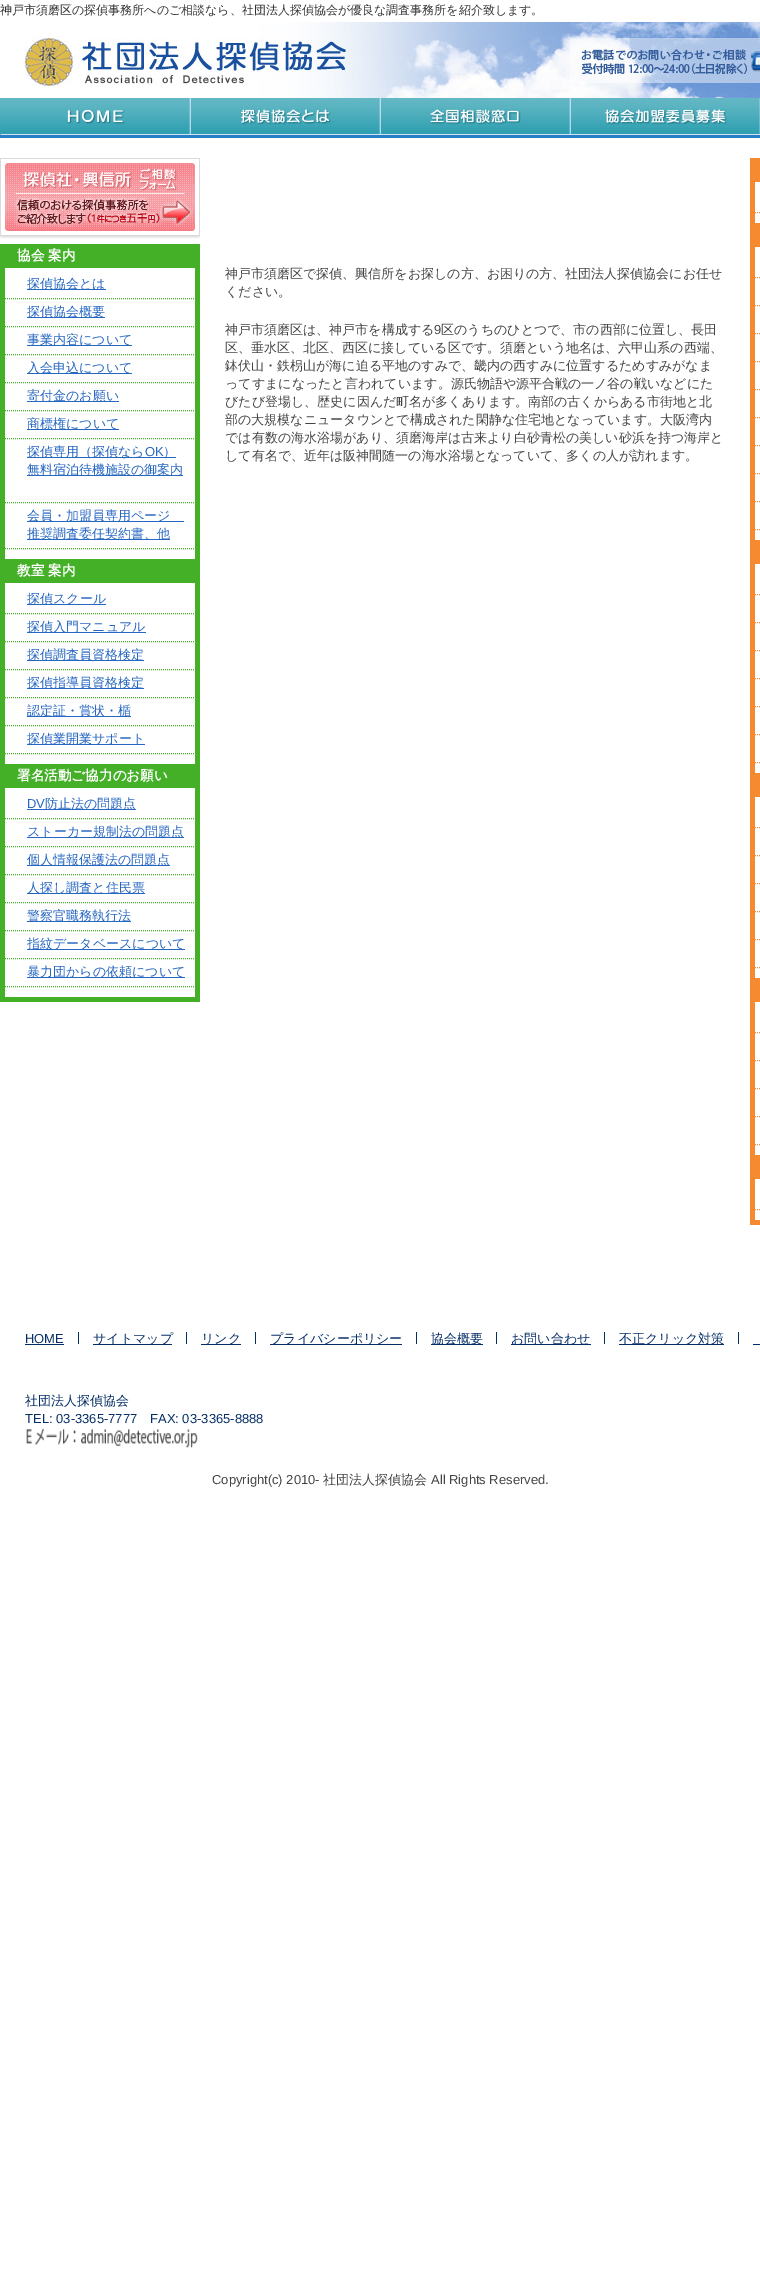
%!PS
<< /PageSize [760 2277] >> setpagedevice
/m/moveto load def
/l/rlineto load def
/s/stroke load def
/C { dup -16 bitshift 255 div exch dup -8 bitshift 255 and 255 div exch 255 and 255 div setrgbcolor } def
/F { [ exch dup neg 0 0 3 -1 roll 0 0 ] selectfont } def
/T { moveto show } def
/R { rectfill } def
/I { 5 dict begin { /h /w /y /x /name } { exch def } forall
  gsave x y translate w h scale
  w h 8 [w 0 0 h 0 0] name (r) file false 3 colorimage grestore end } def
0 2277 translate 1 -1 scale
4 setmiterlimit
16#FFFFFF C
0 0 760 2277 R
/WenQuanYiZenHei-Medium 12 F
16#333333 C
(神戸市須磨区の探偵事務所へのご相談なら、社団法人探偵協会が優良な調査事務所を紹介致します。) 0 14 T
(1.rgb) 24 22 736 76 I
(2.rgb) 0 98 191 40 I
(3.rgb) 191 98 190 40 I
(4.rgb) 381 98 190 40 I
(5.rgb) 571 98 189 40 I
(6.rgb) 0 158 200 81 I
16#44B028 C
195 244 5 758 R
0 997 200 5 R
0 244 5 758 R
5 244 190 24 R
/WenQuanYiZenHei-Bold 13.6 F
16#FFFFFF C
(協会 案内) 17 260 T
16#44B028 C
[1 1] 0 setdash
5 298.5 m 190 0 l s
16#2667C3 C
27 289 79 1 R
/WenQuanYiZenHei-Medium 13 F
(探偵協会とは) 27 288 T
16#44B028 C
5 326.5 m 190 0 l s
16#2667C3 C
27 317 78 1 R
(探偵協会概要) 27 316 T
16#44B028 C
5 354.5 m 190 0 l s
16#2667C3 C
27 345 105 1 R
(事業内容について) 27 344 T
16#44B028 C
5 382.5 m 190 0 l s
16#2667C3 C
27 373 105 1 R
(入会申込について) 27 372 T
16#44B028 C
5 410.5 m 190 0 l s
16#2667C3 C
27 401 92 1 R
(寄付金のお願い) 27 400 T
16#44B028 C
5 438.5 m 190 0 l s
16#2667C3 C
27 429 92 1 R
(商標権について) 27 428 T
16#44B028 C
5 502.5 m 190 0 l s
16#2667C3 C
27 457 149 1 R
(探偵専用（探偵なら) 27 456 T
/LiberationSans-Regular 13 F
(OK) 145 456 T
/WenQuanYiZenHei-Medium 13 F
(）) 163 456 T
27 475 156 1 R
(無料宿泊待機施設の御案内) 27 474 T
16#44B028 C
5 548.5 m 190 0 l s
16#2667C3 C
27 521 157 1 R
(会員・加盟員専用ページ) 27 520 T
27 539 143 1 R
(推奨調査委任契約書、他) 27 538 T
16#44B028 C
5 559 190 24 R
/WenQuanYiZenHei-Bold 13.6 F
16#FFFFFF C
(教室 案内) 17 575 T
16#44B028 C
5 613.5 m 190 0 l s
16#2667C3 C
27 604 79 1 R
/WenQuanYiZenHei-Medium 13 F
(探偵スクール) 27 603 T
16#44B028 C
5 641.5 m 190 0 l s
16#2667C3 C
27 632 119 1 R
(探偵入門マニュアル) 27 631 T
16#44B028 C
5 669.5 m 190 0 l s
16#2667C3 C
27 660 117 1 R
(探偵調査員資格検定) 27 659 T
16#44B028 C
5 697.5 m 190 0 l s
16#2667C3 C
27 688 117 1 R
(探偵指導員資格検定) 27 687 T
16#44B028 C
5 725.5 m 190 0 l s
16#2667C3 C
27 716 104 1 R
(認定証・賞状・楯) 27 715 T
16#44B028 C
5 753.5 m 190 0 l s
16#2667C3 C
27 744 118 1 R
(探偵業開業サポート) 27 743 T
16#44B028 C
5 764 190 24 R
/WenQuanYiZenHei-Bold 13.6 F
16#FFFFFF C
(署名活動ご協力のお願い) 17 780 T
16#44B028 C
5 818.5 m 190 0 l s
/LiberationSans-Regular 13 F
16#2667C3 C
(DV) 27 808 T
27 809 109 1 R
/WenQuanYiZenHei-Medium 13 F
(防止法の問題点) 45 808 T
16#44B028 C
5 846.5 m 190 0 l s
16#2667C3 C
27 837 157 1 R
(ストーカー規制法の問題点) 27 836 T
16#44B028 C
5 874.5 m 190 0 l s
16#2667C3 C
27 865 143 1 R
(個人情報保護法の問題点) 27 864 T
16#44B028 C
5 902.5 m 190 0 l s
16#2667C3 C
27 893 118 1 R
(人探し調査と住民票) 27 892 T
16#44B028 C
5 930.5 m 190 0 l s
16#2667C3 C
27 921 104 1 R
(警察官職務執行法) 27 920 T
16#44B028 C
5 958.5 m 190 0 l s
16#2667C3 C
27 949 158 1 R
(指紋データベースについて) 27 948 T
16#44B028 C
5 986.5 m 190 0 l s
16#2667C3 C
27 977 158 1 R
(暴力団からの依頼について) 27 976 T
16#444444 C
(神戸市須磨区で探偵、興信所をお探しの方、お困りの方、社団法人探偵協会にお任せ) 225 278 T
(ください。) 225 296 T
(神戸市須磨区は、神戸市を構成する) 225 334 T
/LiberationSans-Regular 13 F
(9) 434 334 T
/WenQuanYiZenHei-Medium 13 F
(区のうちのひとつで、市の西部に位置し、長田) 441 334 T
(区、垂水区、北区、西区に接している区です。須磨という地名は、六甲山系の西端、) 225 352 T
(鉢伏山・鉄枴山が海に迫る平地のすみで、畿内の西すみに位置するためすみがなま) 225 370 T
(ってすまになったと言われています。源氏物語や源平合戦の一ノ谷の戦いなどにた) 225 388 T
(びたび登場し、歴史に因んだ町名が多くあります。南部の古くからある市街地と北) 225 406 T
(部の大規模なニュータウンとで構成された閑静な住宅地となっています。大阪湾内) 225 424 T
(では有数の海水浴場があり、須磨海岸は古来より白砂青松の美しい砂浜を持つ海岸と) 225 442 T
(して有名で、近年は阪神間随一の海水浴場となっていて、多くの人が訪れます。) 225 460 T
16#F58A31 C
750 1220 10 5 R
750 158 5 1067 R
755 158 5 24 R
755 212.5 m 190 0 l s
755 223 5 24 R
755 277.5 m 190 0 l 755 305.5 m 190 0 l 755 333.5 m 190 0 l s
755 361.5 m 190 0 l 755 389.5 m 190 0 l 755 417.5 m 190 0 l s
755 445.5 m 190 0 l 755 473.5 m 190 0 l 755 501.5 m 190 0 l s
755 529.5 m 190 0 l s
755 540 5 24 R
755 594.5 m 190 0 l 755 622.5 m 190 0 l 755 650.5 m 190 0 l s
755 678.5 m 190 0 l 755 706.5 m 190 0 l 755 734.5 m 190 0 l s
755 762.5 m 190 0 l s
755 773 5 24 R
755 827.5 m 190 0 l 755 855.5 m 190 0 l 755 883.5 m 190 0 l s
755 911.5 m 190 0 l 755 939.5 m 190 0 l 755 967.5 m 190 0 l s
755 978 5 24 R
755 1032.5 m 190 0 l 755 1060.5 m 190 0 l 755 1088.5 m 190 0 l s
755 1116.5 m 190 0 l 755 1144.5 m 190 0 l s
755 1155 5 24 R
755 1209.5 m 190 0 l s
/LiberationSans-Regular 13 F
16#052D66 C
(HOME) 25 1343 T
25 1344 39 1 R
93 1344 79 1 R
/WenQuanYiZenHei-Medium 13 F
(サイトマップ) 93 1343 T
78 1332 1 12 R
201 1344 40 1 R
(リンク) 201 1343 T
186 1332 1 12 R
270 1344 132 1 R
(プライバシーポリシー) 270 1343 T
255 1332 1 12 R
431 1344 52 1 R
(協会概要) 431 1343 T
416 1332 1 12 R
511 1344 80 1 R
(お問い合わせ) 511 1343 T
496 1332 1 12 R
619 1344 105 1 R
(不正クリック対策) 619 1343 T
604 1332 1 12 R
738 1332 1 12 R
753 1344 7 1 R
(社団法人探偵協会) 25 1405 T
/LiberationSans-Regular 13 F
(TEL: 03-3365-7777) 25 1423 T
(FAX: 03-3365-8888) 150 1423 T
(7.rgb) 26 1428 172 20 I
16#444444 C
(Copyright\(c\) 2010-) 212 1484 T
/WenQuanYiZenHei-Medium 13 F
(社団法人探偵協会) 323 1484 T
/LiberationSans-Regular 13 F
(All Rights Reserved.) 431 1484 T
showpage
